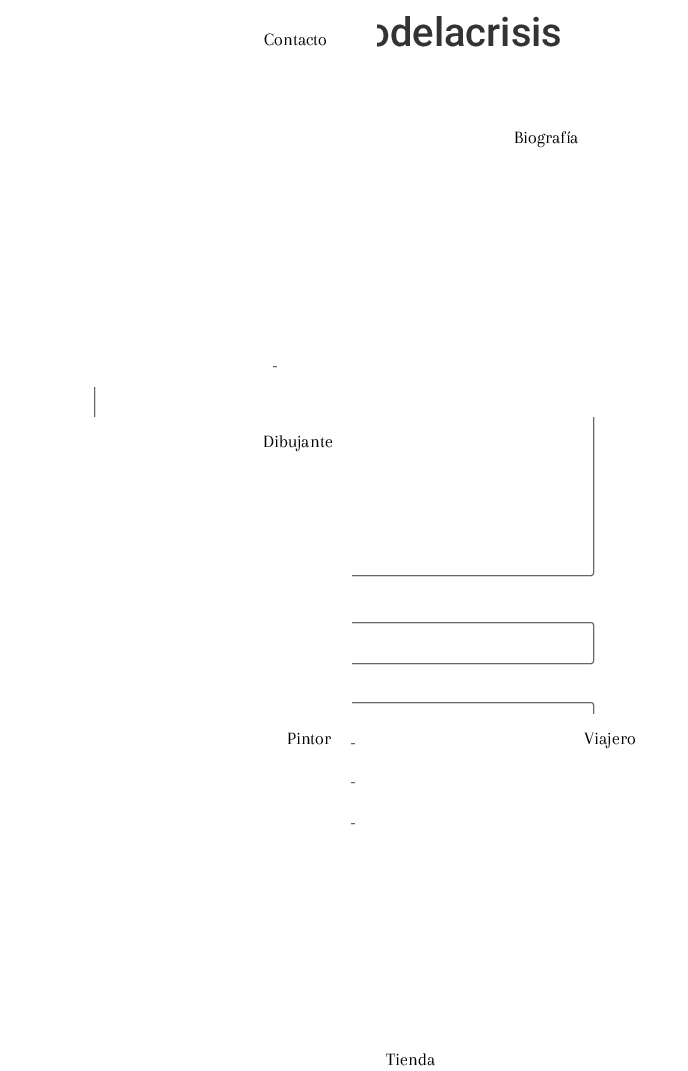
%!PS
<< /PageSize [688 1071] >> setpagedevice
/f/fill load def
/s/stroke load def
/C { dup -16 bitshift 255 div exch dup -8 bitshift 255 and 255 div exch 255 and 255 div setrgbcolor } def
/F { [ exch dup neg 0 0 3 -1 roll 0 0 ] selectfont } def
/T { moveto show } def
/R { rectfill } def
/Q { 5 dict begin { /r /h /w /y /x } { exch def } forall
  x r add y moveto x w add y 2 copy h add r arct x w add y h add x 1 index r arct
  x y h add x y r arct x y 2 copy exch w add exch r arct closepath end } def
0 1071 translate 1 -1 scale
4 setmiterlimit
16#FFFFFF C
0 0 688 1071 R
/Roboto-Medium 40 F
16#333333 C
(odelacrisis) 367 46 T
16#666666 C
94.5 366.5 499 209 2.5 Q s
94.5 622.5 499 41 2.5 Q s
94.5 702.5 499 41 2.5 Q s
94.5 782.5 499 41 rectstroke
16#FFFFFF C
10 113 263 274 2 Q f
277 113 321 304 2 Q f
0 0 377 227 6 Q f
/Arapey-Regular 18 F
16#000000 C
(Contacto) 264 45 T
(Biografía) 514 143 T
16#FFFFFF C
10 417 342 297 2 Q f
16#000000 C
(Dibujante) 263 447 T
16#FFFFFF C
10 714 341 301 2 Q f
16#000000 C
(Pintor) 287 744 T
16#FFFFFF C
355 714 300 321 2 Q f
16#000000 C
(Viajero) 584 744 T
(Tienda) 386 1065 T
showpage
